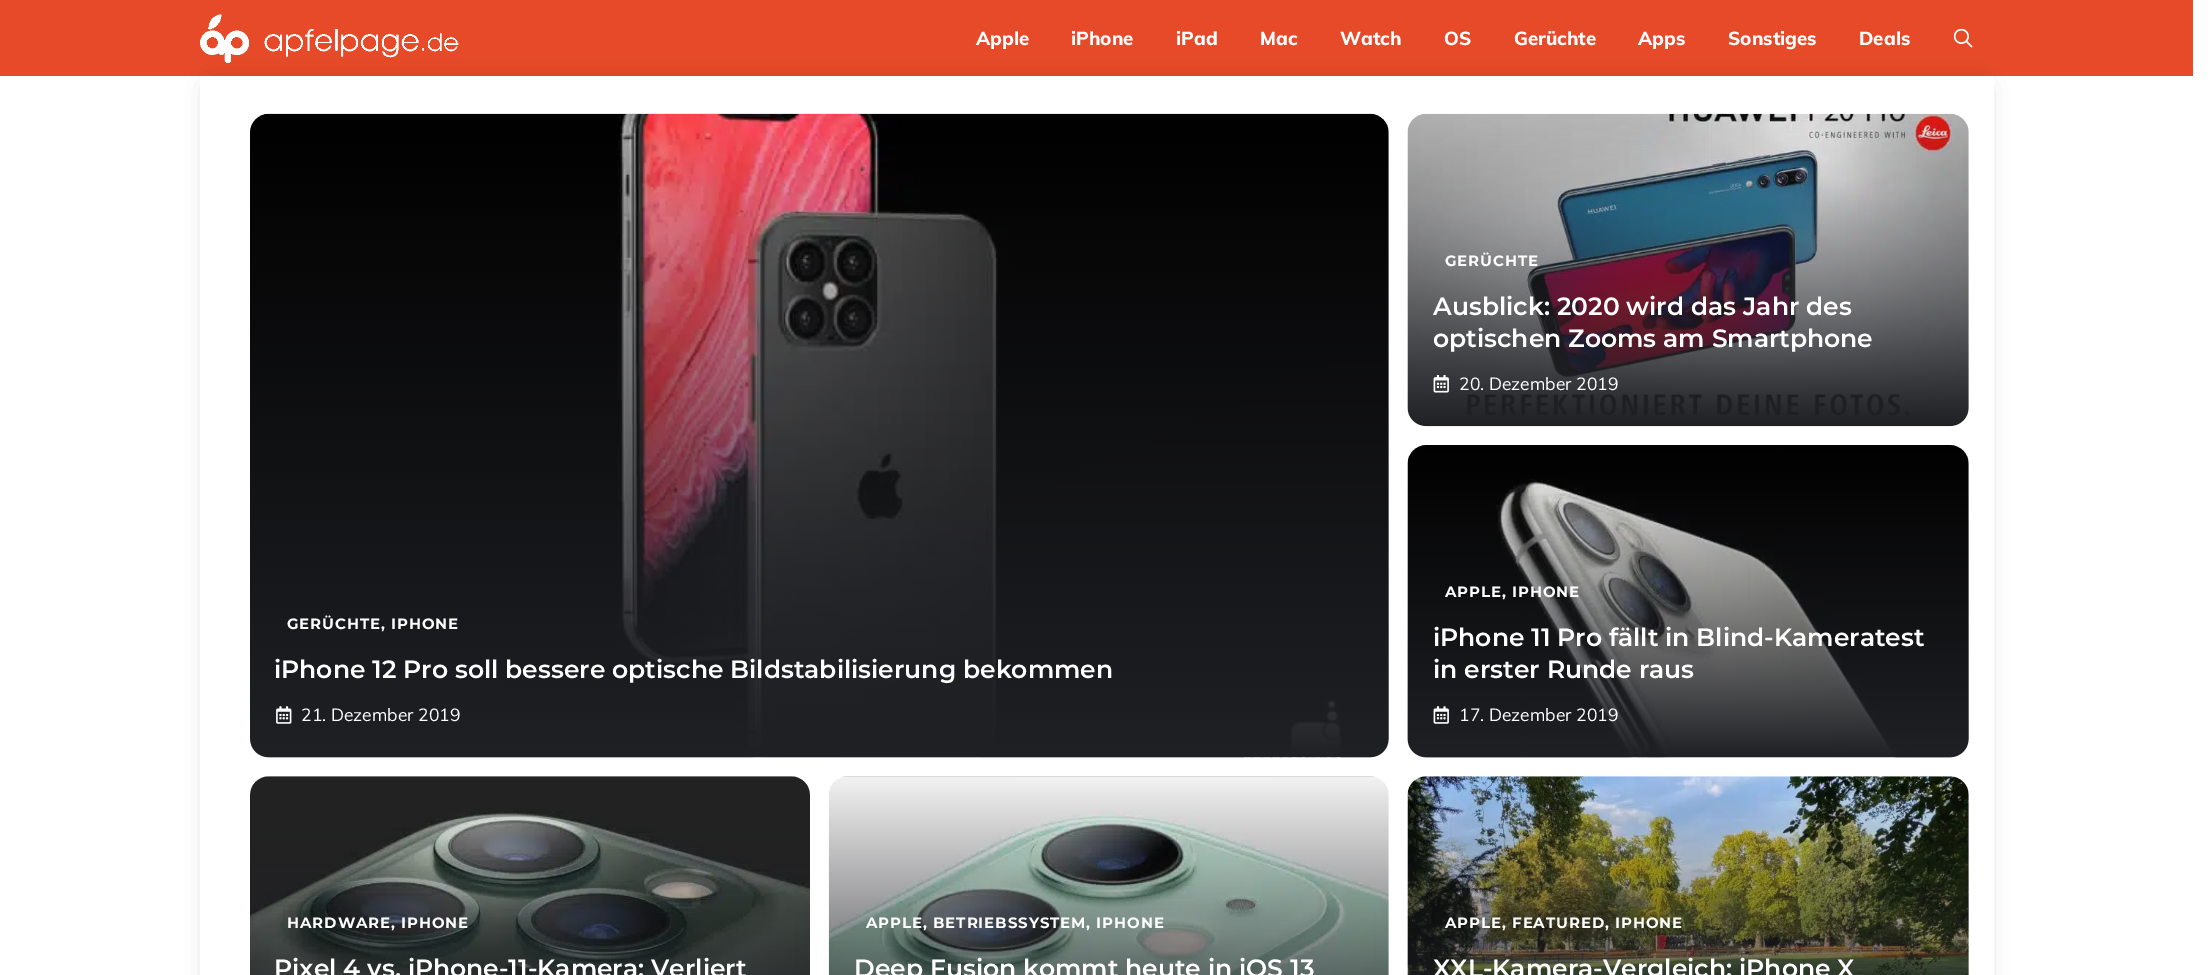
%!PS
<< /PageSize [2211 975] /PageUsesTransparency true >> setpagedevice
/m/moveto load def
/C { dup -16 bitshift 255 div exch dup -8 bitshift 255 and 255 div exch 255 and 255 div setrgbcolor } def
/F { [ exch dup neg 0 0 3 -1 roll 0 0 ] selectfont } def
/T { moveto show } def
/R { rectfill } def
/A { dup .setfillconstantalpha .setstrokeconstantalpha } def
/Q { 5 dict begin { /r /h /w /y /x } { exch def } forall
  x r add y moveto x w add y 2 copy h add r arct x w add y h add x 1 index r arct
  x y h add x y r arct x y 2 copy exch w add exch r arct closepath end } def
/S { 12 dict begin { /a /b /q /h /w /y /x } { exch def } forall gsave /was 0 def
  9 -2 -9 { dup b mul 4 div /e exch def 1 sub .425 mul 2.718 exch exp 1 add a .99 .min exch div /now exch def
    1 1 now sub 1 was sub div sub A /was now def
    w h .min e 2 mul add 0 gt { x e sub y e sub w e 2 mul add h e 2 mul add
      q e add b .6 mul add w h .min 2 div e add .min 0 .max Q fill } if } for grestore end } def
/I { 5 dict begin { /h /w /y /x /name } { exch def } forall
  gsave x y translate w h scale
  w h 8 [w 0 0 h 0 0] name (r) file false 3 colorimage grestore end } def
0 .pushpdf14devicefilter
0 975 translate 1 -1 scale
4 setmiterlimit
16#FFFFFF C
0 0 2211 975 R
16#E64A28 C
0 0 2193 76 R
16#000000 C
213 89 1768 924 0 12.5 .3 S
(1.rgb) 200 14 259 49 I
/Muli-ExtraBold 18.75 F
16#FFFFFF C
(Apple) 976 45 T
(iPhone) 1071 45 T
(iPad) 1176 45 T
(Mac) 1260 45 T
(Watch) 1340 45 T
(OS) 1444 45 T
(Gerüchte) 1514 45 T
(Apps) 1638 45 T
(Sonstiges) 1728 45 T
(Deals) 1859 45 T
(2.rgb) 1954 29 19 19 I
200 76 1794 899 R
(3.rgb) 1407 113 562 314 I
/Montserrat-Bold 15 F
1445 266 m .9 0 (GERÜCHTE) ashow
/Montserrat-SemiBold 25 F
(Ausblick: 2020 wird das Jahr des) 1433 315 T
(optischen Zooms am Smartphone) 1433 347 T
(4.rgb) 1433 375 16 18 I
/Muli-Regular 17.5 F
(20. Dezember 2019) 1459 390 T
(5.rgb) 250 113 1139 645 I
/Montserrat-Bold 15 F
287 629 m .9 0 (GERÜCHTE, IPHONE) ashow
/Montserrat-SemiBold 25 F
(iPhone 12 Pro soll bessere optische Bildstabilisierung bekommen) 274 678 T
(6.rgb) 276 706 16 18 I
/Muli-Regular 17.5 F
(21. Dezember 2019) 301 721 T
(7.rgb) 1407 445 562 313 I
/Montserrat-Bold 15 F
1445 597 m .9 0 (APPLE, IPHONE) ashow
/Montserrat-SemiBold 25 F
(iPhone 11 Pro fällt in Blind-Kameratest) 1433 646 T
(in erster Runde raus) 1433 678 T
(8.rgb) 1433 706 16 18 I
/Muli-Regular 17.5 F
(17. Dezember 2019) 1459 721 T
(9.rgb) 250 776 560 199 I
/Montserrat-Bold 15 F
287 928 m .9 0 (HARDWARE, IPHONE) ashow
/Montserrat-SemiBold 25 F
(Pixel 4 vs. iPhone-11-Kamera: Verliert) 274 977 T
(10.rgb) 828 776 561 199 I
/Montserrat-Bold 15 F
866 928 m .9 0 (APPLE, BETRIEBSSYSTEM, IPHONE) ashow
/Montserrat-SemiBold 25 F
(Deep Fusion kommt heute in iOS 13) 854 977 T
(11.rgb) 1407 776 562 199 I
/Montserrat-Bold 15 F
1445 928 m .9 0 (APPLE, FEATURED, IPHONE) ashow
/Montserrat-SemiBold 25 F
(XXL-Kamera-Vergleich: iPhone X) 1433 977 T
.poppdf14devicefilter showpage
